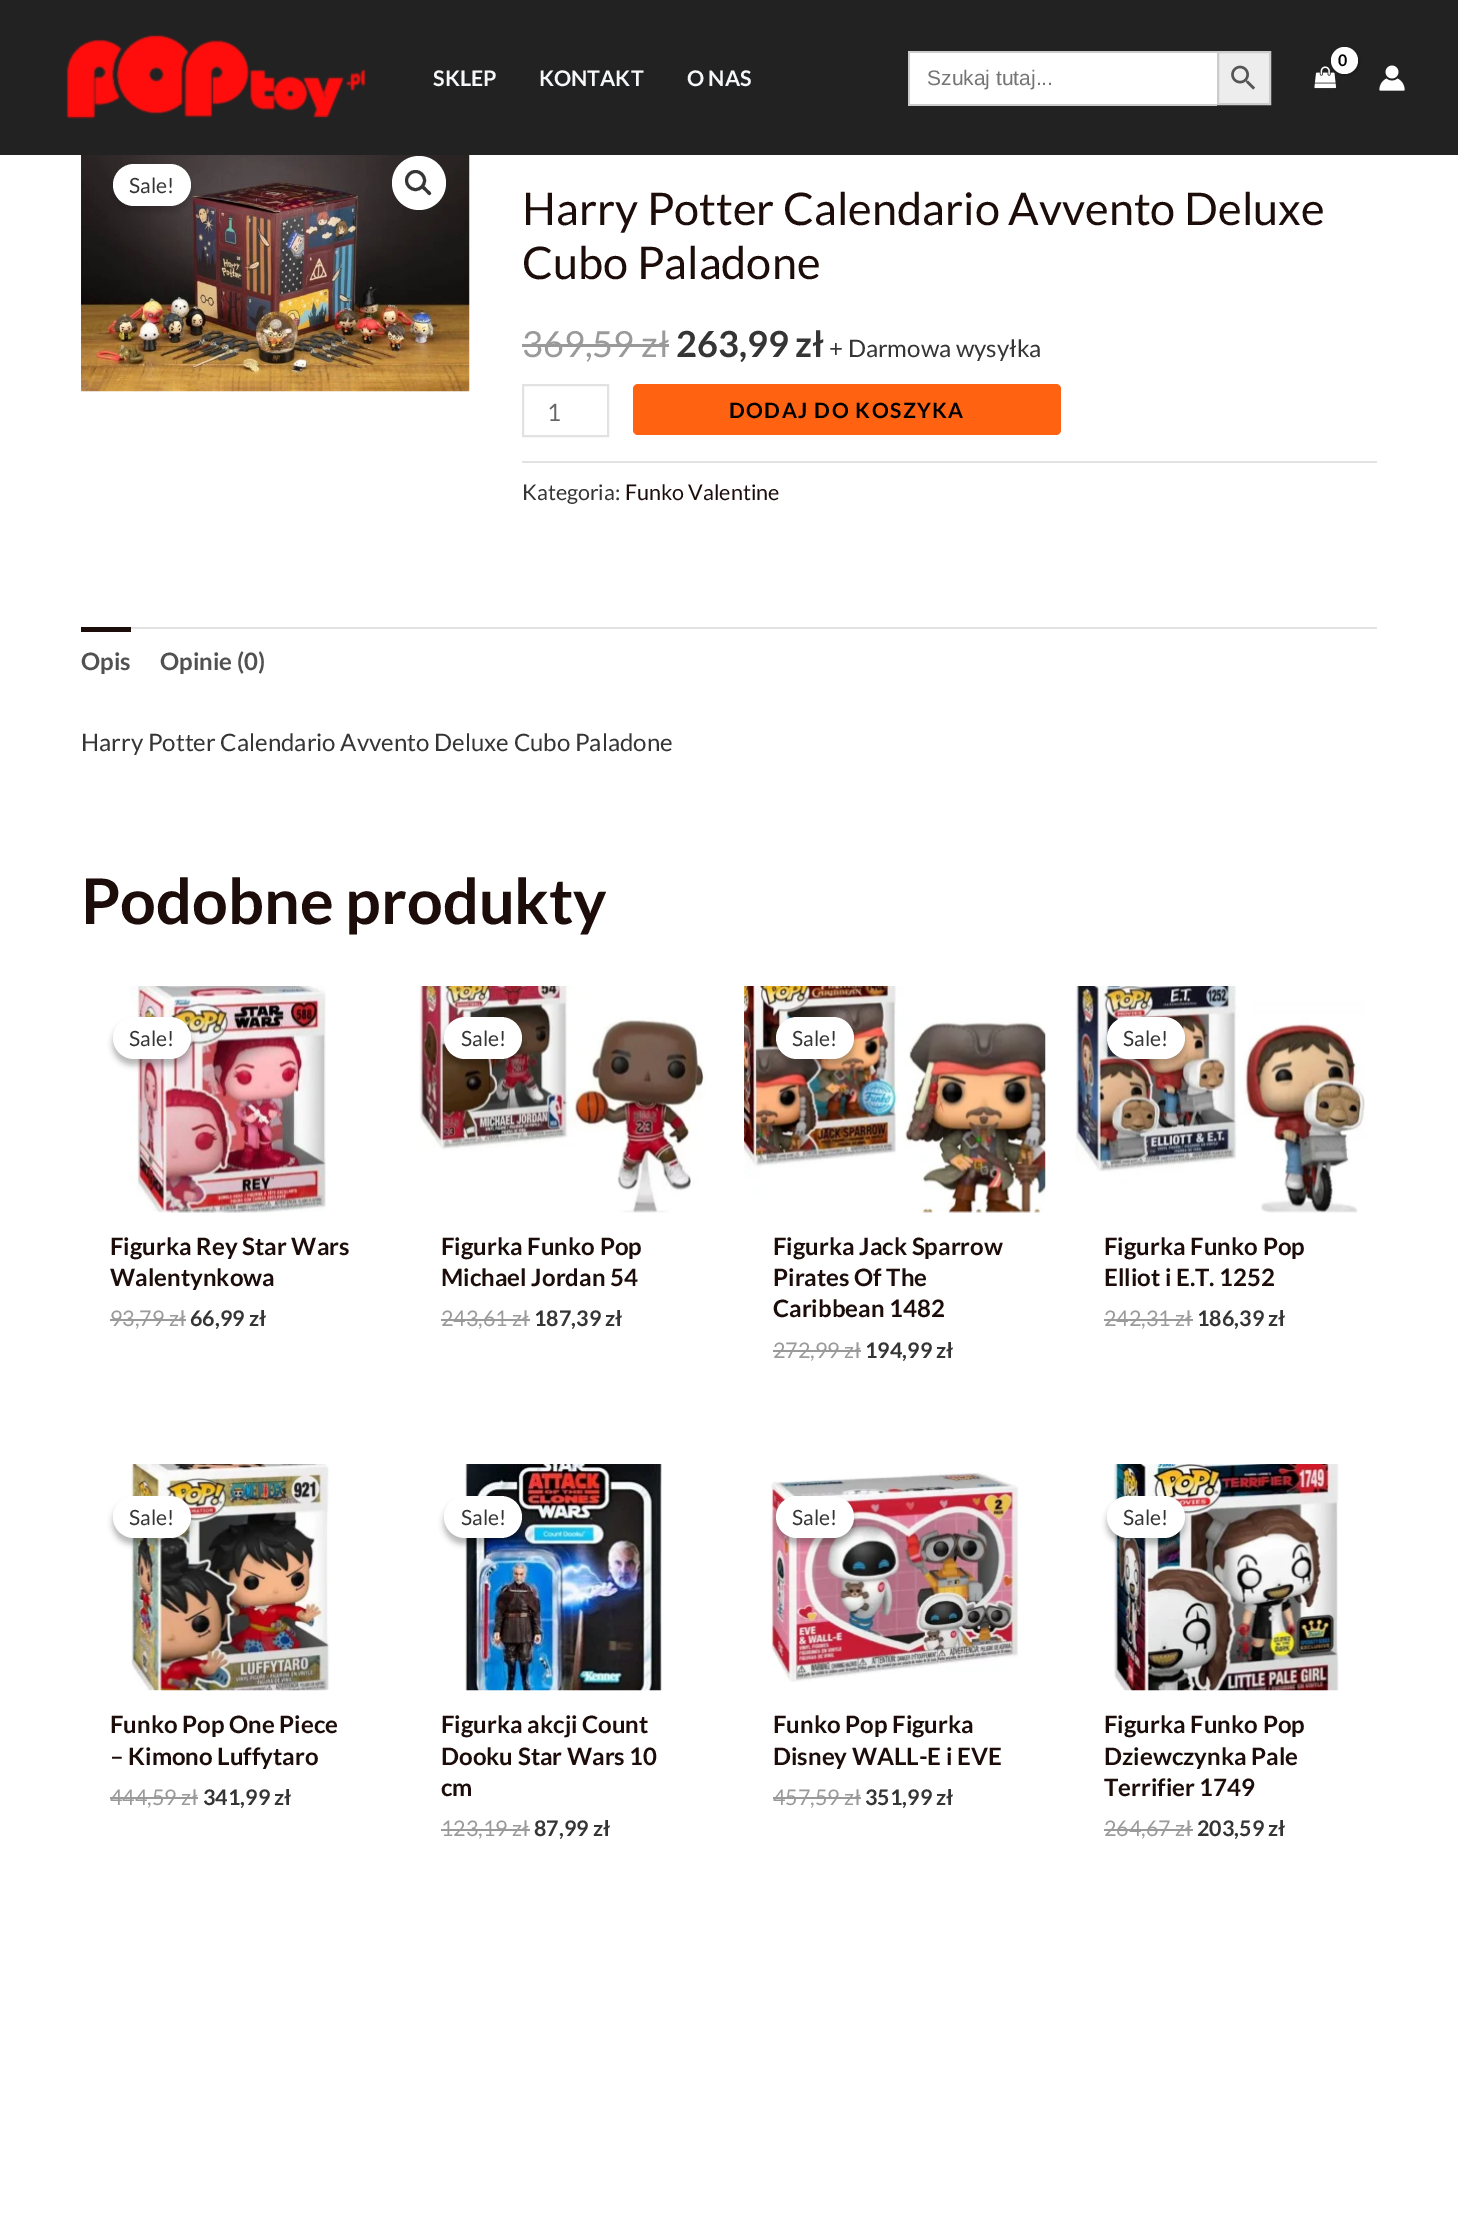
%!PS
<< /PageSize [1458 2216] /PageUsesTransparency true >> setpagedevice
/m/moveto load def
/l/rlineto load def
/c/rcurveto load def
/z/closepath load def
/f/fill load def
/s/stroke load def
/q/gsave load def
/Q_/grestore load def
/w/setlinewidth load def
/C { dup -16 bitshift 255 div exch dup -8 bitshift 255 and 255 div exch 255 and 255 div setrgbcolor } def
/F { [ exch dup neg 0 0 3 -1 roll 0 0 ] selectfont } def
/T { moveto show } def
/R { rectfill } def
/A { dup .setfillconstantalpha .setstrokeconstantalpha } def
/O { newpath 0 360 arc closepath } def
/Q { 5 dict begin { /r /h /w /y /x } { exch def } forall
  x r add y moveto x w add y 2 copy h add r arct x w add y h add x 1 index r arct
  x y h add x y r arct x y 2 copy exch w add exch r arct closepath end } def
/S { 12 dict begin { /a /b /q /h /w /y /x } { exch def } forall gsave /was 0 def
  9 -2 -9 { dup b mul 4 div /e exch def 1 sub .425 mul 2.718 exch exp 1 add a .99 .min exch div /now exch def
    1 1 now sub 1 was sub div sub A /was now def
    w h .min e 2 mul add 0 gt { x e sub y e sub w e 2 mul add h e 2 mul add
      q e add b .6 mul add w h .min 2 div e add .min 0 .max Q fill } if } for grestore end } def
/I { 5 dict begin { /h /w /y /x /name } { exch def } forall
  gsave x y translate w h scale
  w h 8 [w 0 0 h 0 0] name (r) file false 3 colorimage grestore end } def
0 .pushpdf14devicefilter
0 2216 translate 1 -1 scale
4 setmiterlimit
16#FFFFFF C
0 0 1458 2216 R
16#222222 C
0 0 1458 155 R
(1.rgb) 66 34 301 85 I
/Lato-Bold 21.5 F
16#F5F7F9 C
(SKLEP) 433 86 T
(KONTAKT) 539 86 T
(O NAS) 687 86 T
(2.rgb) 1314 66 23 23 I
16#000000 C
1332 48 27 27 13.5 2 .3 S
16#FFFFFF C
1344.5 60.5 13.5 O f
/Lato-Bold 16 F
16#000000 C
1338 66 m -1 0 (0) ashow
16#FFFFFF C
910 53 307 51 R
16#CCCCCC C
908 51 309 2 R
908 104 309 2 R
908 51 2 54 R
/LiberationSans-Regular 21 F
16#757575 C
(Szukaj tutaj...) 927 85 T
16#EDEDED C
1218 52 m 52 0 l 0 52 l -52 0 l z q f Q_
16#CCCCCC C
2 w
s
(3.rgb) 1231 65 25 25 I
(4.rgb) 1379 65 26 26 I
(5.rgb) 81 155 389 237 I
16#FFFFFF C
419 183 27 O f
16#353535 C
3 w
415.5 180.5 9 O s
422 186.5 m 2 -2 4.5 2 5.5 3 c 1 1 5 3.5 3 5 c -1.5 2 -4 -2 -5 -3 c -1 -1 -5 -3.5 -3.5 -5 c z f
16#000000 C
113 170 78 42 21 3 .15 S
16#FFFFFF C
113 164 78 42 21 Q f
/Lato-Regular 21 F
16#353535 C
(Sale!) 129 193 T
/Lato-Regular 45 F
16#1C0D0A C
(Harry Potter Calendario Avvento Deluxe) 522 225 T
(Cubo Paladone) 522 279 T
/Lato-Regular 36 F
16#9A9A9A C
(369,59 zł) 522 357 T
522 344 147 3 R
/Lato-Bold 36 F
16#353535 C
(263,99 zł) 676 357 T
/Lato-Regular 24 F
(+ Darmowa wysyłka) 829 357 T
16#E2E2E2 C
2 w
523 385 85 51 rectstroke
16#666666 C
(1) 547 421 T
16#FF6210 C
633 384 428 51 5 Q f
/Lato-Bold 21 F
16#000000 C
729 418 m 1.5 0 (DODAJ DO KOSZYKA) ashow
16#E2E2E2 C
522 461 855 2 R
/Lato-Regular 21.5 F
16#353535 C
(Kategoria:) 522 500 T
16#1C0D0A C
(Funko Valentine) 625 500 T
16#E2E2E2 C
131 627 1246 2 R
16#1C0D0A C
81 627 50 5 R
/Lato-Bold 24 F
16#515151 C
(Opis) 81 670 T
(Opinie \(0\)) 160 670 T
/Lato-Regular 24 F
16#353535 C
(Harry Potter Calendario Avvento Deluxe Cubo Paladone) 81 751 T
/Lato-Bold 63 F
16#1C0D0A C
(Podobne produkty) 81 924 T
(6.rgb) 129 986 197 227 I
16#000000 C
113 1023 78 42 21 3 .15 S
113 1023 78 42 21 3 .15 S
16#FFFFFF C
113 1017 78 42 21 Q f
/Lato-Regular 21 F
16#353535 C
(Sale!) 129 1046 T
/Lato-Bold 24 F
16#1C0D0A C
(Figurka Rey Star Wars) 110 1255 T
(Walentynkowa) 110 1286 T
/Lato-Regular 21.5 F
16#9A9A9A C
(93,79) 110 1326 T
110 1319 60 2 R
(zł) 169 1326 T
170 1319 16 2 R
/Lato-Bold 21.5 F
16#353535 C
(66,99 zł) 190 1326 T
(7.rgb) 419 986 287 227 I
16#000000 C
444 1023 78 42 21 3 .15 S
444 1023 78 42 21 3 .15 S
16#FFFFFF C
444 1017 78 42 21 Q f
/Lato-Regular 21 F
16#353535 C
(Sale!) 461 1046 T
/Lato-Bold 24 F
16#1C0D0A C
(Figurka Funko Pop) 441 1255 T
(Michael Jordan 54) 441 1286 T
/Lato-Regular 21.5 F
16#9A9A9A C
(243,61 zł) 441 1326 T
441 1319 89 2 R
/Lato-Bold 21.5 F
16#353535 C
(187,39 zł) 534 1326 T
(8.rgb) 744 986 302 227 I
16#000000 C
776 1023 78 42 21 3 .15 S
776 1023 78 42 21 3 .15 S
16#FFFFFF C
776 1017 78 42 21 Q f
/Lato-Regular 21 F
16#353535 C
(Sale!) 792 1046 T
/Lato-Bold 24 F
16#1C0D0A C
(Figurka Jack Sparrow) 773 1255 T
(Pirates Of The) 773 1286 T
(Caribbean 1482) 773 1317 T
/Lato-Regular 21.5 F
16#9A9A9A C
(272,99) 773 1358 T
773 1350 72 2 R
(zł) 844 1358 T
845 1350 16 2 R
/Lato-Bold 21.5 F
16#353535 C
(194,99 zł) 865 1358 T
(9.rgb) 1075 986 290 227 I
16#000000 C
1107 1023 78 42 21 3 .15 S
1107 1023 78 42 21 3 .15 S
16#FFFFFF C
1107 1017 78 42 21 Q f
/Lato-Regular 21 F
16#353535 C
(Sale!) 1123 1046 T
/Lato-Bold 24 F
16#1C0D0A C
(Figurka Funko Pop) 1104 1255 T
(Elliot i E.T. 1252) 1104 1286 T
/Lato-Regular 21.5 F
16#9A9A9A C
(242,31 zł) 1104 1326 T
1104 1319 89 2 R
/Lato-Bold 21.5 F
16#353535 C
(186,39 zł) 1197 1326 T
(10.rgb) 130 1464 200 227 I
16#000000 C
113 1502 78 42 21 3 .15 S
113 1502 78 42 21 3 .15 S
16#FFFFFF C
113 1496 78 42 21 Q f
/Lato-Regular 21 F
16#353535 C
(Sale!) 129 1525 T
/Lato-Bold 24 F
16#1C0D0A C
(Funko Pop One Piece) 110 1733 T
(– Kimono Luffytaro) 110 1765 T
/Lato-Regular 21.5 F
16#9A9A9A C
(444,59 zł) 110 1805 T
110 1797 88 2 R
/Lato-Bold 21.5 F
16#353535 C
(341,99 zł) 203 1805 T
(11.rgb) 465 1464 197 227 I
16#000000 C
444 1502 78 42 21 3 .15 S
444 1502 78 42 21 3 .15 S
16#FFFFFF C
444 1496 78 42 21 Q f
/Lato-Regular 21 F
16#353535 C
(Sale!) 461 1525 T
/Lato-Bold 24 F
16#1C0D0A C
(Figurka akcji Count) 441 1733 T
(Dooku Star Wars 10) 441 1765 T
(cm) 441 1796 T
/Lato-Regular 21.5 F
16#9A9A9A C
(123,19 zł) 441 1836 T
441 1829 89 2 R
/Lato-Bold 21.5 F
16#353535 C
(87,99 zł) 534 1836 T
(12.rgb) 770 1472 249 210 I
16#000000 C
776 1502 78 42 21 3 .15 S
776 1502 78 42 21 3 .15 S
16#FFFFFF C
776 1496 78 42 21 Q f
/Lato-Regular 21 F
16#353535 C
(Sale!) 792 1525 T
/Lato-Bold 24 F
16#1C0D0A C
(Funko Pop Figurka) 773 1733 T
(Disney WALL-E i EVE) 773 1765 T
/Lato-Regular 21.5 F
16#9A9A9A C
(457,59) 773 1805 T
773 1797 72 2 R
(zł) 844 1805 T
845 1797 16 2 R
/Lato-Bold 21.5 F
16#353535 C
(351,99 zł) 865 1805 T
(13.rgb) 1113 1464 226 227 I
16#000000 C
1107 1502 78 42 21 3 .15 S
1107 1502 78 42 21 3 .15 S
16#FFFFFF C
1107 1496 78 42 21 Q f
/Lato-Regular 21 F
16#353535 C
(Sale!) 1123 1525 T
/Lato-Bold 24 F
16#1C0D0A C
(Figurka Funko Pop) 1104 1733 T
(Dziewczynka Pale) 1104 1765 T
(Terrifier 1749) 1104 1796 T
/Lato-Regular 21.5 F
16#9A9A9A C
(264,67 zł) 1104 1836 T
1104 1829 89 2 R
/Lato-Bold 21.5 F
16#353535 C
(203,59 zł) 1197 1836 T
.poppdf14devicefilter showpage
